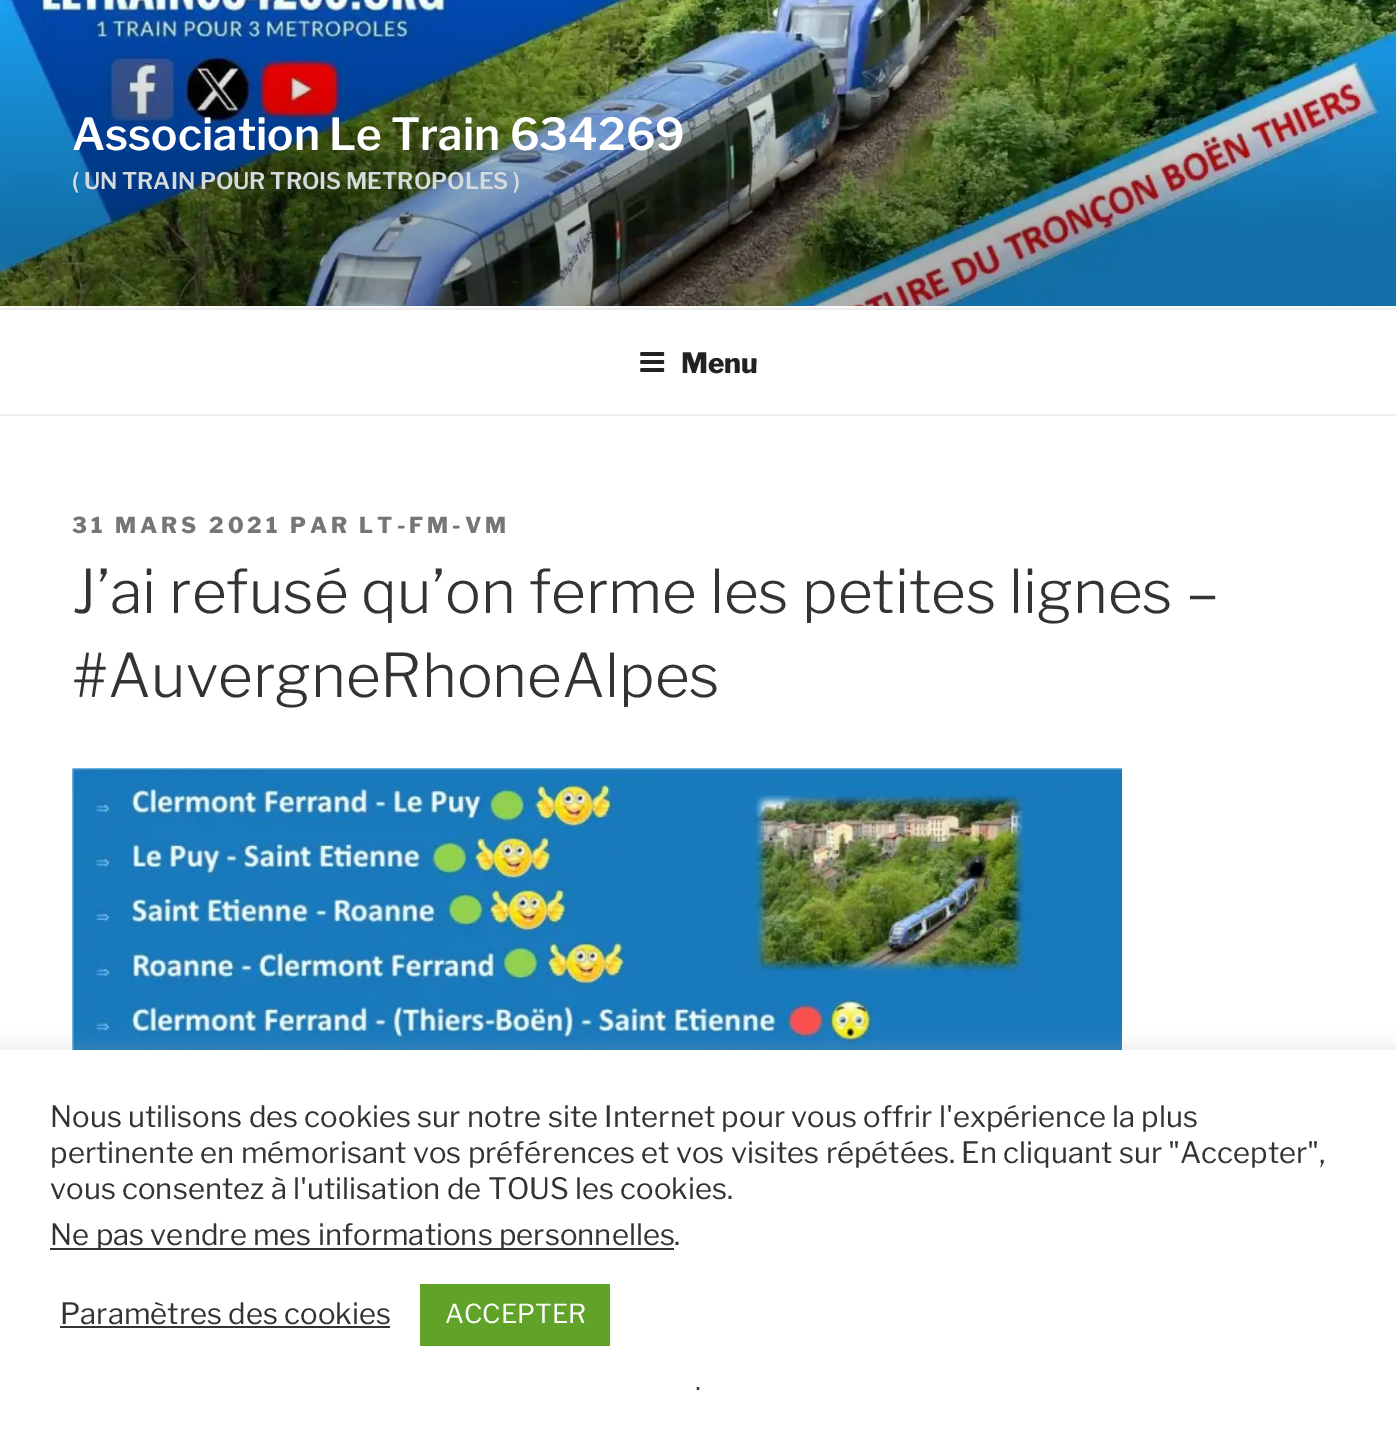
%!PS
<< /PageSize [1396 1456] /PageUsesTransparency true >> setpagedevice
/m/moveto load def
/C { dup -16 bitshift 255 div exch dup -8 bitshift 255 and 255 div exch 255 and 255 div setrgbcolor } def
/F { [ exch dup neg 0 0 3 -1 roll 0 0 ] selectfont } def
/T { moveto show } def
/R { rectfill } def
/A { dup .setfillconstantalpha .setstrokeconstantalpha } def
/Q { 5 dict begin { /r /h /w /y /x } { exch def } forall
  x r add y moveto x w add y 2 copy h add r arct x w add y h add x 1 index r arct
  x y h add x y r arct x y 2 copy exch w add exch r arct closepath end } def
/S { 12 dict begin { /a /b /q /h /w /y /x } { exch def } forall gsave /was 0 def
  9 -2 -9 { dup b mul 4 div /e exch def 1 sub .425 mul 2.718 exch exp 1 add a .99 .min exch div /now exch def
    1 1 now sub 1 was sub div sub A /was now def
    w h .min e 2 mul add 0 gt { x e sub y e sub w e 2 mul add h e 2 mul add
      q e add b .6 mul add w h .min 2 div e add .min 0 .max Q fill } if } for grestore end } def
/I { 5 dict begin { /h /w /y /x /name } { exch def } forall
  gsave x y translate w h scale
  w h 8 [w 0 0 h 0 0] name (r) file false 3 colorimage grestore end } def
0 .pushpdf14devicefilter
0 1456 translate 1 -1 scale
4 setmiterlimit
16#FFFFFF C
0 0 1396 1456 R
16#FAFAFA C
0 306 1396 2 R
(1.rgb) 0 0 1396 306 I
/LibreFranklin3-Thin 44 F
16#FFFFFF C
(Association Le Train 634269) 72 150 T
/LibreFranklin3-Thin 22.75 F
16#D5DBDC C
(\( UN TRAIN POUR TROIS METROPOLES \)) 72 189 T
16#EEEEEE C
0 308 1396 2 R
0 414 1396 2 R
(2.rgb) 640 352 25 20 I
/LibreFranklin-Thin 28 F
16#222222 C
(Menu) 681 373 T
/LibreFranklin-Thin 22 F
16#767676 C
72 533 m 4 0 (31 MARS 2021 PAR LT-FM-VM) ashow
/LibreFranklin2-Thin 60 F
16#333333 C
(J’ai refusé qu’on ferme les petites lignes –) 72 613 T
(#AuvergneRhoneAlpes) 72 697 T
(3.rgb) 72 768 1050 282 I
16#ACABAB C
0 1048 1396 406 0 10 .3 S
16#FFFFFF C
0 1050 1396 406 R
/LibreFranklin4-Thin 29.35 F
16#333333 C
(Nous utilisons des cookies sur notre site Internet pour vous offrir l'expérience la plus) 50 1127 T
(pertinente en mémorisant vos préférences et vos visites répétées. En cliquant sur "Accepter",) 50 1163 T
(vous consentez à l'utilisation de TOUS les cookies.) 50 1199 T
50 1248 624 2 R
(Ne pas vendre mes informations personnelles) 50 1245 T
(.) 674 1245 T
(Paramètres des cookies) 60 1324 T
60 1326 330 2 R
16#61A229 C
420 1284 190 62 R
/LibreFranklin4-Thin 26 F
16#FFFFFF C
(ACCEPTER) 445 1323 T
/LibreFranklin2-Thin 30 F
16#333333 C
(.) 695 1390 T
.poppdf14devicefilter showpage
